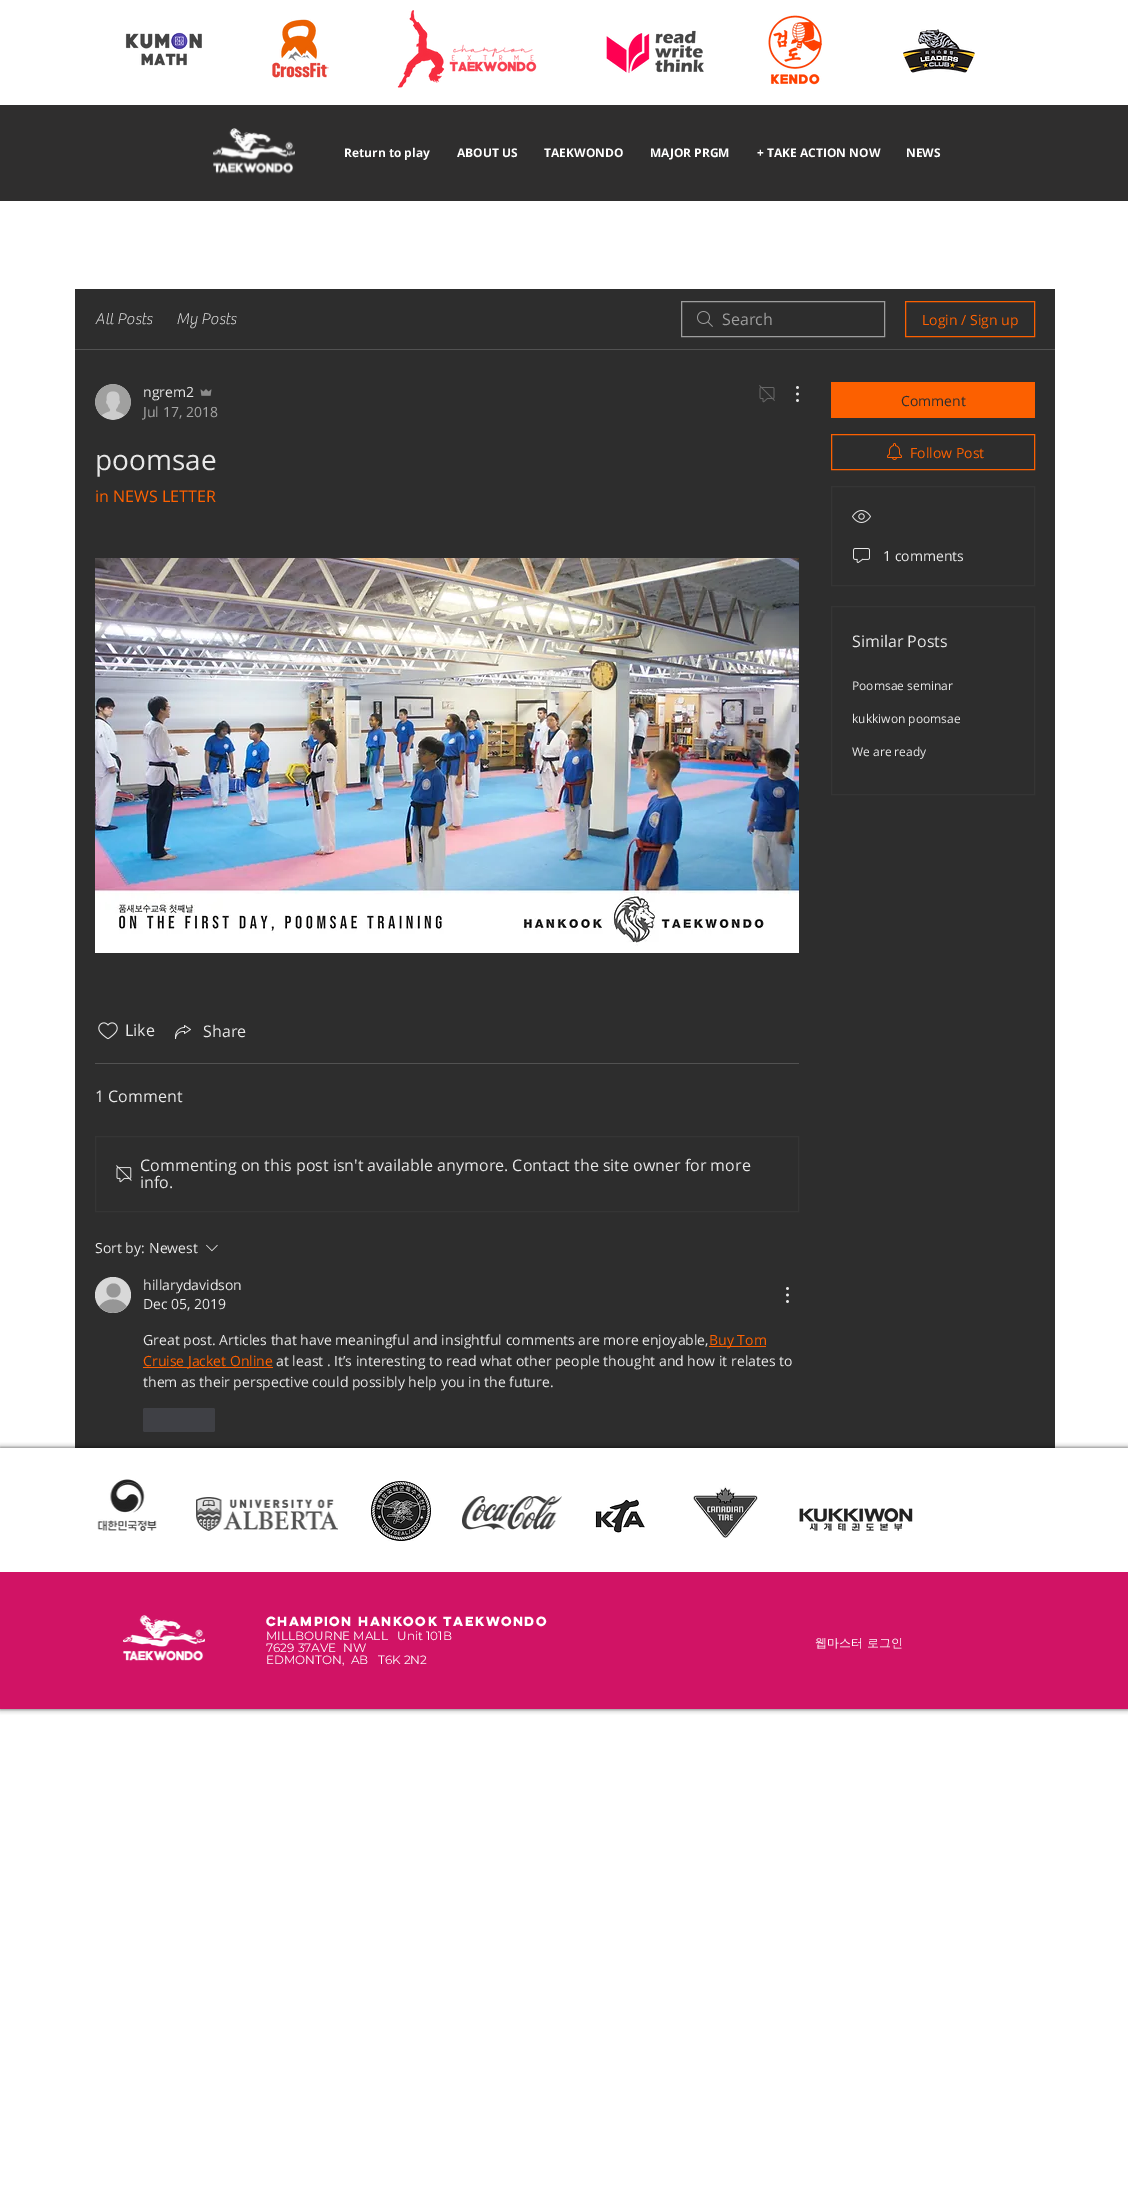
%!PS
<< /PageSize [1128 2209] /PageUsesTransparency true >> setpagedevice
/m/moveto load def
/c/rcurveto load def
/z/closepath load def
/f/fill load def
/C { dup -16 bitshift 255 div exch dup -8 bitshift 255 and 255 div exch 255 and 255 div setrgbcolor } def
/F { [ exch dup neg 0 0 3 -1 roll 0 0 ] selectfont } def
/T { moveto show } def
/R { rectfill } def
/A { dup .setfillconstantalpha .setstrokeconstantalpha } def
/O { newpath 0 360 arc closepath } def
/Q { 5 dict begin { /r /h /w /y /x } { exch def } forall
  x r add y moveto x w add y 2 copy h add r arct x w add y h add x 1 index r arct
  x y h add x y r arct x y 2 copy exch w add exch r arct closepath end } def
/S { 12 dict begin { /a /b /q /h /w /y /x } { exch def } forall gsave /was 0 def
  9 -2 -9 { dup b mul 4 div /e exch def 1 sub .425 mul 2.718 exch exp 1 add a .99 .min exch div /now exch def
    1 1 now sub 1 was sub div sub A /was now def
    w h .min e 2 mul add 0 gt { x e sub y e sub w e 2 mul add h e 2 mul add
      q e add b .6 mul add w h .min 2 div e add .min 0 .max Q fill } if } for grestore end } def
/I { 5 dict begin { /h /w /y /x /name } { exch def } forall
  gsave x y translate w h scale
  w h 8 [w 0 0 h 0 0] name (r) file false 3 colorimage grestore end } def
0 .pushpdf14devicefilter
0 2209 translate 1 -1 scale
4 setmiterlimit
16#FFFFFF C
0 0 1128 2209 R
16#2F2E2E C
0 105 1128 96 R
(1.rgb) 125 32 77 34 I
(2.rgb) 272 19 57 59 I
(3.rgb) 397 10 140 78 I
(4.rgb) 606 30 98 44 I
(5.rgb) 768 15 54 70 I
(6.rgb) 903 29 72 44 I
(7.rgb) 213 128 82 46 I
/OpenSans-Bold 12 F
16#FFFFFF C
(Return to play) 344 157 T
(ABOUT US) 457 157 T
(TAEKWONDO) 544 157 T
(MAJOR PRGM) 650 157 T
(+ TAKE ACTION NOW) 757 157 T
(NEWS) 906 157 T
16#2D2D2D C
75 289 980 1159 R
16#525252 C
75 349 980 1 R
/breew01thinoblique-Thin 16 F
16#E8E8E8 C
(All Posts) 95 324 T
(My Posts) 176 324 T
(8.rgb) 697 311 16 16 I
16#9D9D9D C
681.5 301.5 203 35 rectstroke
/OpenSans-Regular 16 F
(Search) 722 325 T
16#FC6000 C
905.5 301.5 129 35 rectstroke
/OpenSans-Regular 14 F
(Login / Sign up) 922 325 T
(9.rgb) 95 384 36 36 I
16#E8E8E8 C
(ngrem2) 143 397 T
(10.rgb) 200 389 12 7 I
16#A5A5A5 C
(Jul 17, 2018) 143 417 T
(11.rgb) 759 385 16 18 I
(12.rgb) 796 386 3 16 I
/OpenSans-Regular 28 F
16#E8E8E8 C
(poomsae) 95 470 T
/OpenSans-Regular 16 F
16#FC6000 C
(in NEWS LETTER) 95 502 T
(13.rgb) 95 558 704 395 I
(14.rgb) 98 1022 20 18 I
16#E8E8E8 C
(Like) 125 1036 T
(15.rgb) 175 1025 16 14 I
(Share) 203 1037 T
16#525252 C
95 1063 704 1 R
16#E8E8E8 C
(1 Comment) 95 1102 T
16#353535 C
95.5 1136.5 703 75 rectstroke
(16.rgb) 116 1165 16 18 I
16#E8E8E8 C
(Commenting on this post isn't available anymore. Contact the site owner for more) 140 1171 T
(info.) 140 1188 T
/OpenSans-Regular 14 F
(Sort by:) 95 1253 T
(Newest) 149 1253 T
(17.rgb) 206 1244 12 8 I
16#D8D8D8 C
113 1295 18 O f
16#969696 C
113.5 1290.5 7 O f
126.5 1306.5 m -7 8.5 -20 8.5 -27 0 c 6 -9.5 21 -9.5 27 0 c z f
16#E8E8E8 C
(hillarydavidson) 143 1290 T
(Dec 05, 2019) 143 1309 T
(18.rgb) 786 1287 3 16 I
(Great post. Articles that have meaningful and insightful comments are more enjoyable,) 143 1345 T
16#FC6000 C
709 1346 57 1 R
(Buy Tom) 709 1345 T
143 1367 130 1 R
(Cruise Jacket Online) 143 1366 T
16#E8E8E8 C
(at least . It’s interesting to read what other people thought and how it relates to) 276 1366 T
(them as their perspective could possibly help you in the future.) 143 1387 T
16#3F4045 C
143 1408 72 24 2 Q f
16#FC6000 C
831 382 204 36 R
16#2D2D2D C
(Comment) 901 406 T
16#FC6000 C
831.5 434.5 203 35 rectstroke
(19.rgb) 887 443 15 17 I
(Follow Post) 910 458 T
16#353535 C
831.5 486.5 203 99 rectstroke
(20.rgb) 852 510 19 13 I
(21.rgb) 853 548 17 15 I
16#E8E8E8 C
(1 comments) 883 561 T
16#353535 C
831.5 606.5 203 188 rectstroke
/OpenSans-Regular 16 F
16#E8E8E8 C
(Similar Posts) 852 647 T
/OpenSans-Regular 12 F
(Poomsae seminar) 852 690 T
(kukkiwon poomsae) 852 723 T
(We are ready) 852 756 T
16#000000 C
0 1448 1128 261 0 2.5 .7 S
16#D11365 C
0 1572 1128 137 R
16#FFFFFF C
0 1448 1128 124 R
(22.rgb) 97 1479 60 52 I
(23.rgb) 196 1497 142 34 I
(24.rgb) 371 1481 60 60 I
(25.rgb) 462 1496 100 34 I
(26.rgb) 595 1499 50 34 I
(27.rgb) 693 1486 65 52 I
(28.rgb) 799 1508 114 23 I
(29.rgb) 123 1615 82 46 I
/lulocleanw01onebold-Bold 12 F
266 1626 m -1.2 0 (CHAMPION HANKOOK TAEKWONDO) ashow
/Montserrat-Regular 12 F
(MILLBOURNE MALL   Unit 101B) 266 1640 T
(7629 37AVE  NW) 266 1652 T
(EDMONTON,  AB   T6K 2N2) 266 1664 T
/WenQuanYiZenHei-Medium 12 F
(웹마스터 로그인) 815 1647 T
.poppdf14devicefilter showpage
